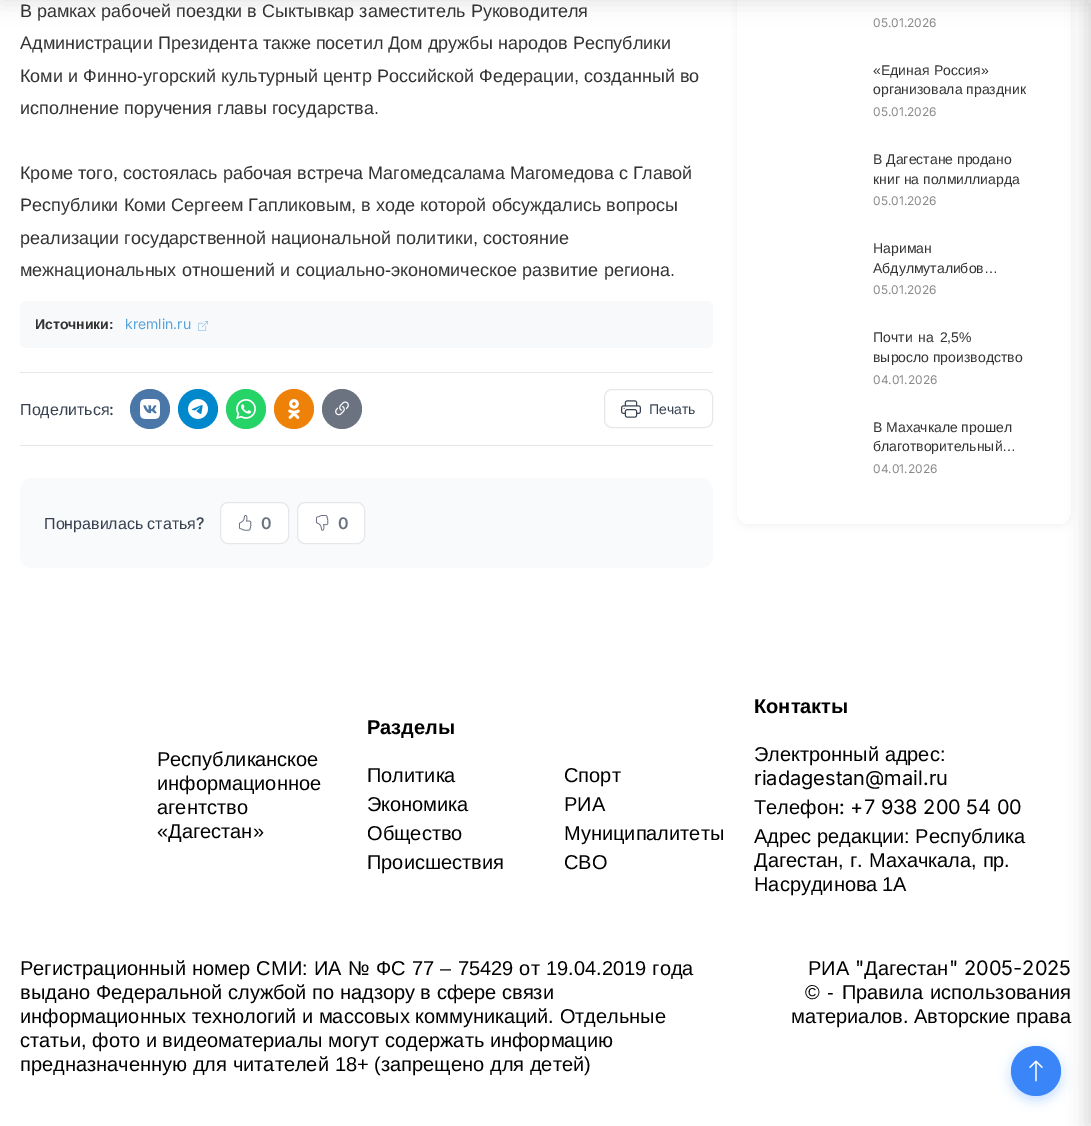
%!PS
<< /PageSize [1091 1126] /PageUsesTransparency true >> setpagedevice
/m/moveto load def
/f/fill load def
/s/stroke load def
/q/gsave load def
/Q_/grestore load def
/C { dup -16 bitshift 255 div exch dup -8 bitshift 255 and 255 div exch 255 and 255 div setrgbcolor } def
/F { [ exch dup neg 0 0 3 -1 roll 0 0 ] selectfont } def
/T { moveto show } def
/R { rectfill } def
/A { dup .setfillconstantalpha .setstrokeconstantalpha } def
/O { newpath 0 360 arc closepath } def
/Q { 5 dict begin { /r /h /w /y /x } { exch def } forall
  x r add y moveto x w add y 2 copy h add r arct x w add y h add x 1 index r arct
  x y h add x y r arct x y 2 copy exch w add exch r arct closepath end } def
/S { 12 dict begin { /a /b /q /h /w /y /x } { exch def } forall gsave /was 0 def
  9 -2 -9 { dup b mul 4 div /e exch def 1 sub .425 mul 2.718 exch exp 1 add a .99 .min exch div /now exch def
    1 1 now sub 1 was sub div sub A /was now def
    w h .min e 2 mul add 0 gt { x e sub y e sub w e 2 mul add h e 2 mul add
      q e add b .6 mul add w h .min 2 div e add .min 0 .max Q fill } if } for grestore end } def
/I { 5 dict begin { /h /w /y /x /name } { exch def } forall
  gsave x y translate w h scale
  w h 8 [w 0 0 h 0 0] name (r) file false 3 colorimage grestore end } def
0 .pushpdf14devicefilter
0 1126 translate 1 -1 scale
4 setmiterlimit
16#FFFFFF C
0 0 1091 1126 R
16#000000 C
737 -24 334 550 12 4 .06 S
16#FFFFFF C
737 -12 334 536 12 Q f
16#000000 C
0 -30 1091 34 0 10 .1 S
/LiberationSans-Regular 18 F
16#333333 C
(В рамках рабочей поездки в Сыктывкар заместитель Руководителя) 20 17 T
(Администрации Президента также посетил Дом дружбы народов Республики) 20 49 T
20 82 m .25 0 32 (Коми и Финно-угорский культурный центр Российской Федерации, созданный во) widthshow
(исполнение поручения главы государства.) 20 114 T
(Кроме того, состоялась рабочая встреча Магомедсалама Магомедова с Главой) 20 179 T
(Республики Коми Сергеем Гапликовым, в ходе которой обсуждались вопросы) 20 211 T
(реализации государственной национальной политики, состояние) 20 244 T
20 276 m .5 0 32 (межнациональных отношений и социально-экономическое развитие региона.) widthshow
16#F8F9FA C
20 301 693 47 6 Q f
/LiberationSans-Bold 14 F
16#333333 C
(Источники:) 35 329 T
/Inter-Regular 14 F
16#57A4DB C
(kremlin.ru) 125 329 T
(1.rgb) 198 321 10 10 I
16#E5E7EB C
20 372 693 1 R
20 445 693 1 R
/LiberationSans-Regular 16 F
16#374151 C
(Поделиться) 20 415 T
/Inter-Medium 16 F
(:) 109 415 T
16#4A76A8 C
150 409 20 O f
(2.rgb) 140 399 20 20 I
16#0088CC C
198 409 20 O f
(3.rgb) 188 399 20 20 I
16#25D366 C
246 409 20 O f
(4.rgb) 236 399 20 20 I
16#EE8208 C
294 409 20 O f
(5.rgb) 288 399 12 20 I
16#6B7280 C
342 409 20 O f
(6.rgb) 335 401 14 15 I
16#E5E7EB C
604.5 389.5 108 38 7.5 Q s
(7.rgb) 621 400 20 18 I
/LiberationSans-Regular 14 F
16#374151 C
(Печать) 649 414 T
16#F9FAFB C
20 478 693 90 12 Q f
/LiberationSans-Regular 16 F
16#374151 C
(Понравилась статья) 44 529 T
/Inter-Medium 16 F
(?) 196 529 T
16#FFFFFF C
220.5 502.5 68 41 7.5 Q q f Q_
16#E5E7EB C
s
(8.rgb) 238 515 14 16 I
/Inter-SemiBold 16 F
16#6B7280 C
(0) 261 529 T
16#FFFFFF C
297.5 502.5 67 41 7.5 Q q f Q_
16#E5E7EB C
s
(9.rgb) 315 515 14 16 I
16#6B7280 C
(0) 338 529 T
/Inter-Regular 12 F
16#888888 C
(05.01.2026) 873 27 T
/LiberationSans-Regular 14 F
16#333333 C
873 75 m 1 0 32 («Единая Россия») widthshow
(организовала праздник) 873 94 T
/Inter-Regular 12 F
16#888888 C
(05.01.2026) 873 116 T
/LiberationSans-Regular 14 F
16#333333 C
(В Дагестане продано) 873 164 T
(книг на полмиллиарда) 873 184 T
/Inter-Regular 12 F
16#888888 C
(05.01.2026) 873 205 T
/LiberationSans-Regular 14 F
16#333333 C
(Нариман) 873 253 T
(Абдулмуталибов…) 873 273 T
/Inter-Regular 12 F
16#888888 C
(05.01.2026) 873 294 T
/LiberationSans-Regular 14 F
16#333333 C
873 342 m 2 0 32 (Почти на 2,5%) widthshow
(выросло производство) 873 362 T
/Inter-Regular 12 F
16#888888 C
(04.01.2026) 873 384 T
/LiberationSans-Regular 14 F
16#333333 C
(В Махачкале прошел) 873 432 T
(благотворительный…) 873 451 T
/Inter-Regular 12 F
16#888888 C
(04.01.2026) 873 473 T
16#3A86F8 C
1011 1050 50 50 25 6 .3 S
1036 1071 25 O f
16#000000 C
1086 0 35 1126 0 10 .15 S
/LiberationSans-Regular 20 F
(Республиканское) 157 766 T
(информационное) 157 790 T
(агентство) 157 814 T
(«Дагестан») 157 838 T
/LiberationSans-Bold 20 F
(Разделы) 367 734 T
/LiberationSans-Regular 20 F
(Политика) 367 782 T
(Экономика) 367 811 T
(Общество) 367 840 T
(Происшествия) 367 869 T
(Спорт) 564 782 T
(РИА) 564 811 T
(Муниципалитеты) 564 840 T
(СВО) 564 869 T
/LiberationSans-Bold 20 F
(Контакты) 754 713 T
/LiberationSans-Regular 20 F
(Электронный адрес:) 754 761 T
/Inter-Regular 20 F
(riadagestan@mail.ru) 754 785 T
/LiberationSans-Regular 20 F
(Телефон) 754 814 T
/Inter-Regular 20 F
(: +7 938 200 54 00) 839 814 T
/LiberationSans-Regular 20 F
(Адрес редакции: Республика) 754 843 T
754 867 m .5 0 32 (Дагестан, г. Махачкала, пр.) widthshow
754 891 m -1 0 32 (Насрудинова 1А) widthshow
20 975 m .75 0 32 (Регистрационный номер СМИ: ИА № ФС 77 – 75429 от 19.04.2019 года) widthshow
(выдано Федеральной службой по надзору в сфере связи) 20 999 T
(информационных технологий и массовых коммуникаций. Отдельные) 20 1023 T
(статьи, фото и видеоматериалы могут содержать информацию) 20 1047 T
20 1071 m .25 0 32 (предназначенную для читателей 18+ \(запрещено для детей\)) widthshow
(РИА) 808 975 T
/Inter-Regular 20 F
(") 855 975 T
/LiberationSans-Regular 20 F
(Дагестан) 864 975 T
/Inter-Regular 20 F
(" 2005-2025) 949 975 T
/LiberationSans-Regular 20 F
805 999 m 2 0 32 (© - Правила использования) widthshow
(материалов. Авторские права) 791 1023 T
(10.rgb) 1029 1060 14 22 I
.poppdf14devicefilter showpage
